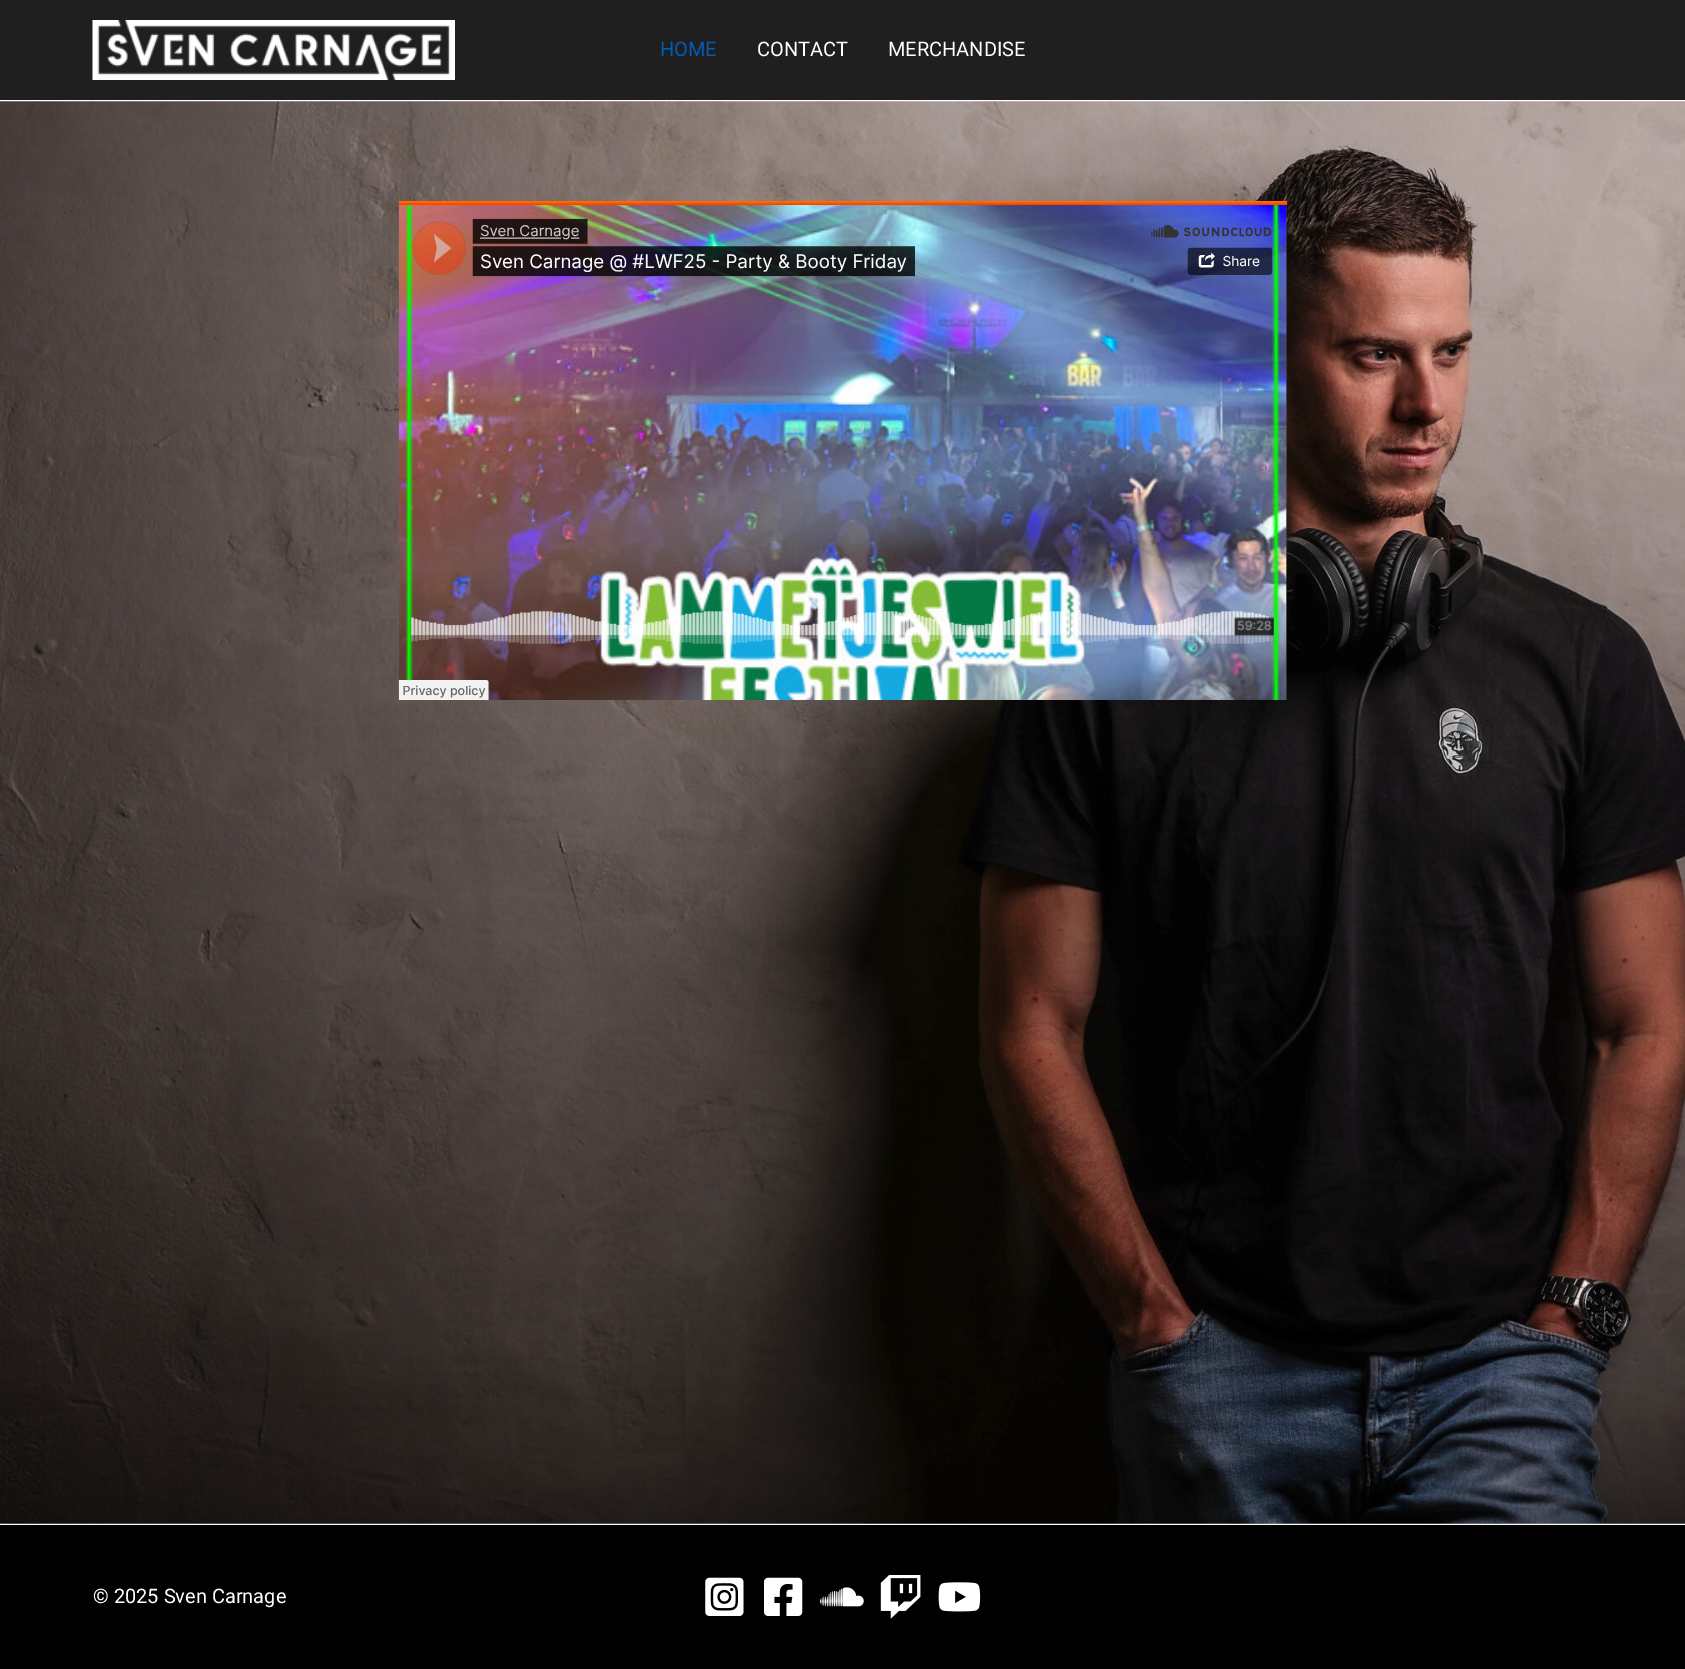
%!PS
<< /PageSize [1685 1669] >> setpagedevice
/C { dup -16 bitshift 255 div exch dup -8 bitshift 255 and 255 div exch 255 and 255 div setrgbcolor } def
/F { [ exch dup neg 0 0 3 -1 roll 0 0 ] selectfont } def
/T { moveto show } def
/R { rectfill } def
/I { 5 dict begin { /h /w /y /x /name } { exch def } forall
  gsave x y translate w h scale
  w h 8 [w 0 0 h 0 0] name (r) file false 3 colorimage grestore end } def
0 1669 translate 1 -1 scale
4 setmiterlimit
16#FFFFFF C
0 0 1685 1669 R
16#1F1F1F C
0 0 1685 100 R
(1.rgb) 92 20 363 60 I
/Roboto-Regular 20 F
16#045CB4 C
(HOME) 660 56 T
16#FFFFFF C
(CONTACT) 757 56 T
(MERCHANDISE) 888 56 T
(2.rgb) 0 101 1685 1423 I
(3.rgb) 398 201 889 499 I
16#000000 C
0 1525 1685 144 R
16#FFFFFF C
(© 2025 Sven Carnage) 93 1603 T
(4.rgb) 705 1577 39 39 I
(5.rgb) 764 1577 39 39 I
(6.rgb) 820 1587 44 20 I
(7.rgb) 880 1575 41 44 I
(8.rgb) 938 1582 43 30 I
showpage
